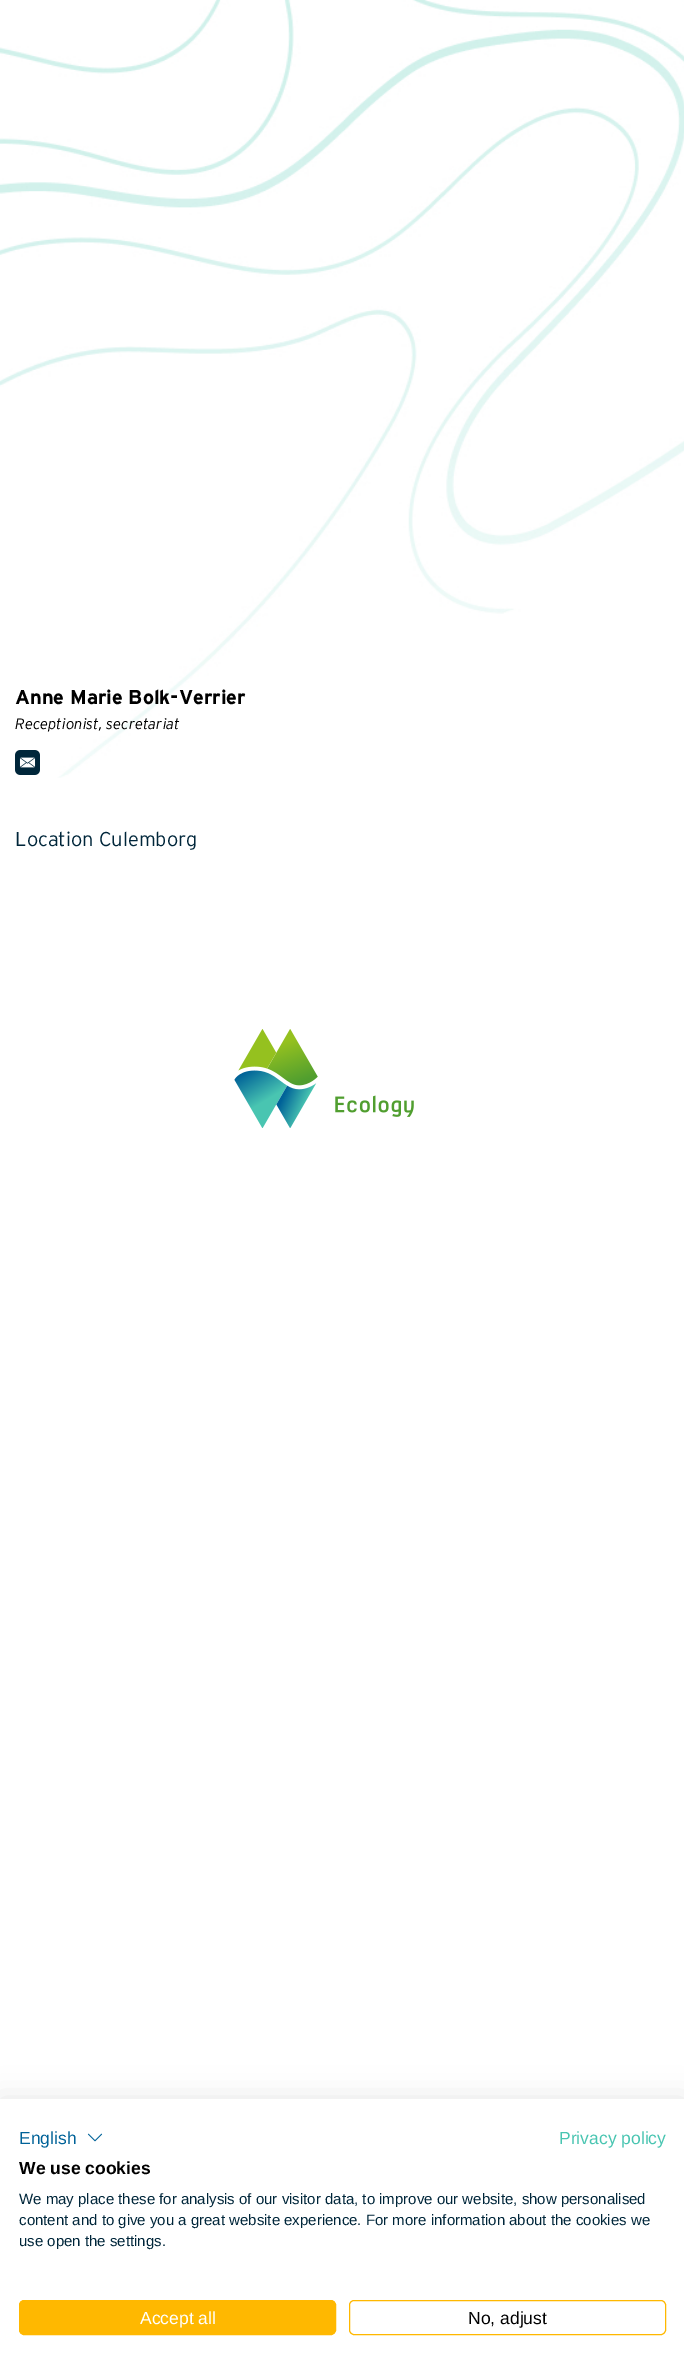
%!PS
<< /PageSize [684 2368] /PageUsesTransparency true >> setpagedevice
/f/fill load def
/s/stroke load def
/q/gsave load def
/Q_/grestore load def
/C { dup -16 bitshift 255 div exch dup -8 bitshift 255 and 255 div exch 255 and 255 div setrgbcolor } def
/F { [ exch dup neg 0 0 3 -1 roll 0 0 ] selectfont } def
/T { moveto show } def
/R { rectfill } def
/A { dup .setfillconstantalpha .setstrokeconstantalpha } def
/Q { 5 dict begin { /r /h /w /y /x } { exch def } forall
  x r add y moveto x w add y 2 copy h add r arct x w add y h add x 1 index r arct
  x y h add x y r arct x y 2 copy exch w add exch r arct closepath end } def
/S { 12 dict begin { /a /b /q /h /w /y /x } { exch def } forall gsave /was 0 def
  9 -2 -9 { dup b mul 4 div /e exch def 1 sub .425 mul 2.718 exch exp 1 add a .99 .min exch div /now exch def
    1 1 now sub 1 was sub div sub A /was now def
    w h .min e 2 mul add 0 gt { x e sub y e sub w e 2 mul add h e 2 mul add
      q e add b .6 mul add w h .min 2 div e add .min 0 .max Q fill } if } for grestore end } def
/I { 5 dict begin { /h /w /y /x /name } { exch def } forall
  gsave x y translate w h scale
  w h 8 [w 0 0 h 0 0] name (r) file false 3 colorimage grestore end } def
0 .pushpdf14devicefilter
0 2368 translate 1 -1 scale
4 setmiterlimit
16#FFFFFF C
0 0 684 2368 R
(1.rgb) 0 0 684 778 I
/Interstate-Bold 20 F
16#000000 C
(Anne Marie Bolk-Verrier) 15 704 T
/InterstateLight-LightItalic 15 F
(Receptionist, secretariat) 15 729 T
(2.rgb) 15 750 25 25 I
/InterstateLight-Light 20 F
16#00263A C
(Location Culemborg) 15 846 T
(3.rgb) 234 1029 180 99 I
16#000000 C
0 2099 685 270 0 15 .1 S
16#FFFFFF C
0 2099 684 269 R
/LiberationSans-Regular 17.5 F
16#006298 C
(English) 19 2144 T
(4.rgb) 87 2133 16 9 I
16#49C5B1 C
(Privacy policy) 559 2144 T
/LiberationSans-Bold 17.5 F
16#000000 C
(We use cookies) 19 2174 T
/LiberationSans-Regular 15 F
16#00263A C
(We may place these for analysis of our visitor data, to improve our website, show personalised) 19 2204 T
(content and to give you a great website experience. For more information about the cookies we) 19 2225 T
(use open the settings.) 19 2246 T
16#FFB800 C
19.5 2300.5 316 34 4.5 Q q f Q_
s
/LiberationSans-Regular 17.5 F
16#FFFFFF C
(Accept all) 140 2324 T
16#FFB800 C
349.5 2300.5 316 34 4.5 Q s
16#000000 C
(No, adjust) 468 2324 T
.poppdf14devicefilter showpage
